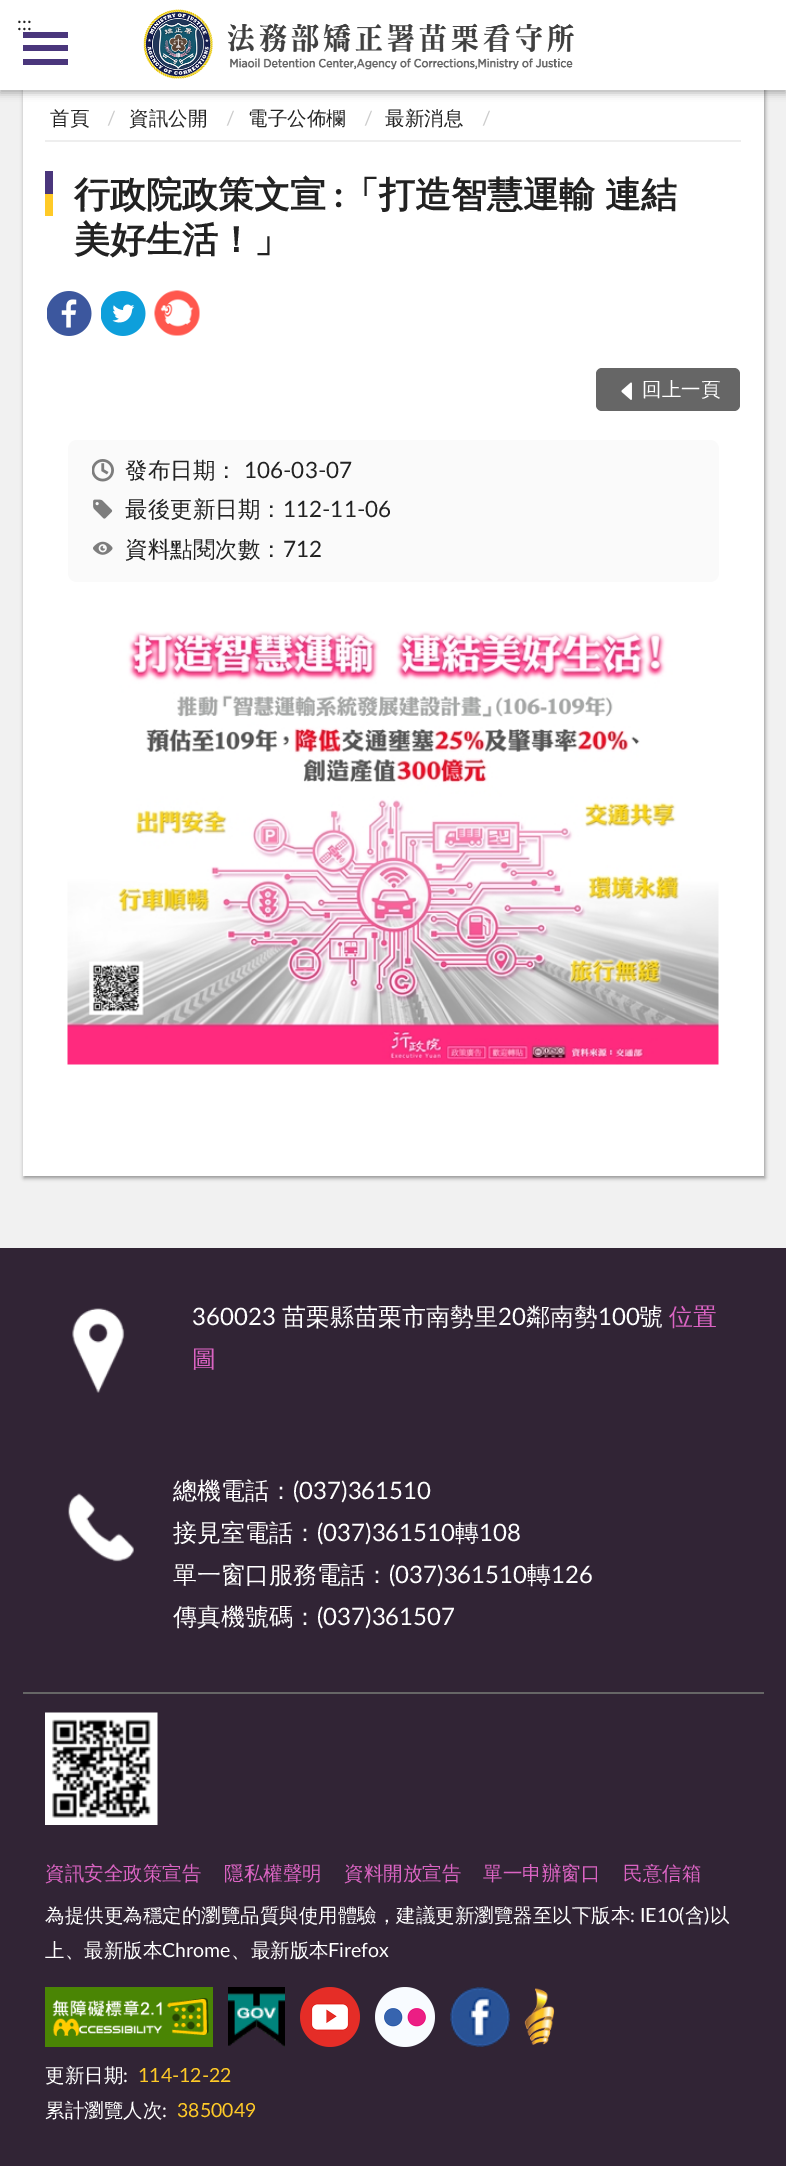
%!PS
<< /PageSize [786 2166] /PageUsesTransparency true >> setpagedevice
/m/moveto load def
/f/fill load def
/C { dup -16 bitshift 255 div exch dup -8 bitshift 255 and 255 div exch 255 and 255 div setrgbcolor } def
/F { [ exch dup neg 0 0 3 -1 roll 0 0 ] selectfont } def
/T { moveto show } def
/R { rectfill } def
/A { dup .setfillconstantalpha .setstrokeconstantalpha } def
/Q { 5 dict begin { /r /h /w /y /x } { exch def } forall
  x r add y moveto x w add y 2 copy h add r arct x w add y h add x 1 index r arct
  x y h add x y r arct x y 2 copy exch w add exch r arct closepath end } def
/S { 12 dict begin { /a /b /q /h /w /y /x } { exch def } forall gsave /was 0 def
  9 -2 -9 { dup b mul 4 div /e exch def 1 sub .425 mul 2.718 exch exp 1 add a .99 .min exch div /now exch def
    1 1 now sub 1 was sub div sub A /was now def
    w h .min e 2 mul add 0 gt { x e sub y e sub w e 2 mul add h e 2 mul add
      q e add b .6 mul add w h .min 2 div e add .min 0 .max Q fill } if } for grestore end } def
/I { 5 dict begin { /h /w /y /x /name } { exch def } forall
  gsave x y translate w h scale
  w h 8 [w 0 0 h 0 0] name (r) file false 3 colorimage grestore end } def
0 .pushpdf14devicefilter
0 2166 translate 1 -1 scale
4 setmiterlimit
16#312435 C
0 0 786 2166 R
16#F1F1F1 C
0 90 786 1158 R
16#000000 C
24 18 741 1160 0 2 .4 S
16#FFFFFF C
23 90 741 1086 R
16#000000 C
0 3 786 90 0 4 .3 S
16#FFFFFF C
0 0 786 90 R
/Lato-Regular 19 F
16#222222 C
(:::) 17 30 T
(1.rgb) 143 9 431 70 I
16#4A367C C
23 32 45 6 R
23 45 45 6 R
23 59 45 6 R
16#EEEEEE C
45 140 696 2 R
/WenQuanYiZenHei-Medium 19.5 F
16#222222 C
(首頁) 50 125 T
/Lato-Regular 19.5 F
16#CCCCCC C
(/) 107 125 T
/WenQuanYiZenHei-Medium 19.5 F
16#222222 C
(資訊公開) 129 125 T
/Lato-Regular 19.5 F
16#CCCCCC C
(/) 226 125 T
/WenQuanYiZenHei-Medium 19.5 F
16#222222 C
(電子公佈欄) 248 125 T
/Lato-Regular 19.5 F
16#CCCCCC C
(/) 364 125 T
/WenQuanYiZenHei-Medium 19.5 F
16#222222 C
(最新消息) 385 125 T
/Lato-Regular 19.5 F
16#CCCCCC C
(/) 482 125 T
16#4A367C C
45 171 8 23 R
/WenQuanYiZenHei-Bold 36 F
16#222222 C
(行政院政策文宣) 74 207 T
/Lato-Bold 36 F
(:) 334 207 T
/WenQuanYiZenHei-Bold 36 F
343 207 m -1 0 32 (「打造智慧運輸 連結) widthshow
16#FFCA27 C
45 194 8 22 R
16#222222 C
(美好生活！」) 74 252 T
(2.rgb) 47 291 45 45 I
(3.rgb) 101 291 45 45 I
(4.rgb) 154 290 46 46 I
16#666666 C
596 368 144 43 6 Q f
(5.rgb) 621 382 11 18 I
/WenQuanYiZenHei-Medium 19.5 F
16#FFFFFF C
(回上一頁) 642 396 T
16#FAFAFA C
68 440 651 142 9 Q f
(6.rgb) 92 459 22 23 I
/WenQuanYiZenHei-Medium 22.5 F
16#222222 C
(發布日期：) 125 478 T
/Lato-Regular 22.5 F
(106-03-07) 244 478 T
(7.rgb) 93 499 20 20 I
/WenQuanYiZenHei-Medium 22.5 F
(最後更新日期：) 125 517 T
/Lato-Regular 22.5 F
(112-11-06) 283 517 T
(8.rgb) 93 541 20 14 I
/WenQuanYiZenHei-Medium 22.5 F
(資料點閱次數：) 125 557 T
/Lato-Regular 22.5 F
(712) 283 557 T
(9.rgb) 67 631 652 434 I
(10.rgb) 72 1308 53 85 I
/Lato-Regular 24 F
16#FFFFFF C
(360023) 192 1325 T
/WenQuanYiZenHei-Medium 24 F
(苗栗縣苗栗市南勢里) 282 1325 T
/Lato-Regular 24 F
(20) 498 1325 T
/WenQuanYiZenHei-Medium 24 F
(鄰南勢) 526 1325 T
/Lato-Regular 24 F
(100) 598 1325 T
/WenQuanYiZenHei-Medium 24 F
(號) 639 1325 T
16#DB64C3 C
(位置) 669 1325 T
(圖) 192 1367 T
(11.rgb) 68 1493 66 69 I
16#FFFFFF C
(總機電話：) 173 1499 T
/Lato-Regular 24 F
(\(037\)361510) 293 1499 T
/WenQuanYiZenHei-Medium 24 F
(接見室電話：) 173 1541 T
/Lato-Regular 24 F
(\(037\)361510) 317 1541 T
/WenQuanYiZenHei-Medium 24 F
(轉) 455 1541 T
/Lato-Regular 24 F
(108) 479 1541 T
/WenQuanYiZenHei-Medium 24 F
(單一窗口服務電話：) 173 1583 T
/Lato-Regular 24 F
(\(037\)361510) 389 1583 T
/WenQuanYiZenHei-Medium 24 F
(轉) 527 1583 T
/Lato-Regular 24 F
(126) 551 1583 T
/WenQuanYiZenHei-Medium 24 F
(傳真機號碼：) 173 1625 T
/Lato-Regular 24 F
(\(037\)361507) 317 1625 T
16#666666 C
23 1692 741 2 R
(12.rgb) 45 1712 113 113 I
/WenQuanYiZenHei-Medium 19.5 F
16#DB64C3 C
(資訊安全政策宣告) 45 1880 T
(隱私權聲明) 224 1880 T
(資料開放宣告) 344 1880 T
(單一申辦窗口) 483 1880 T
(民意信箱) 623 1880 T
16#FFFFFF C
(為提供更為穩定的瀏覽品質與使用體驗，建議更新瀏覽器至以下版本) 45 1922 T
/Lato-Regular 19.5 F
(: IE10\() 630 1922 T
/WenQuanYiZenHei-Medium 19.5 F
(含) 685 1922 T
/Lato-Regular 19.5 F
(\)) 704 1922 T
/WenQuanYiZenHei-Medium 19.5 F
(以) 710 1922 T
(上、最新版本) 45 1957 T
/Lato-Regular 19.5 F
(Chrome) 162 1957 T
/WenQuanYiZenHei-Medium 19.5 F
(、最新版本) 231 1957 T
/Lato-Regular 19.5 F
(Firefox) 328 1957 T
(13.rgb) 45 1987 168 60 I
(14.rgb) 228 1987 57 60 I
(15.rgb) 300 1987 60 60 I
(16.rgb) 375 1987 60 60 I
(17.rgb) 450 1987 60 60 I
(18.rgb) 524 1988 31 57 I
/WenQuanYiZenHei-Medium 19.5 F
(更新日期) 45 2082 T
/Lato-Regular 19.5 F
(:) 123 2082 T
16#FFCA27 C
(114-12-22) 138 2082 T
/WenQuanYiZenHei-Medium 19.5 F
16#FFFFFF C
(累計瀏覽人次) 45 2117 T
/Lato-Regular 19.5 F
(:) 162 2117 T
16#FFCA27 C
(3850049) 177 2117 T
.poppdf14devicefilter showpage
